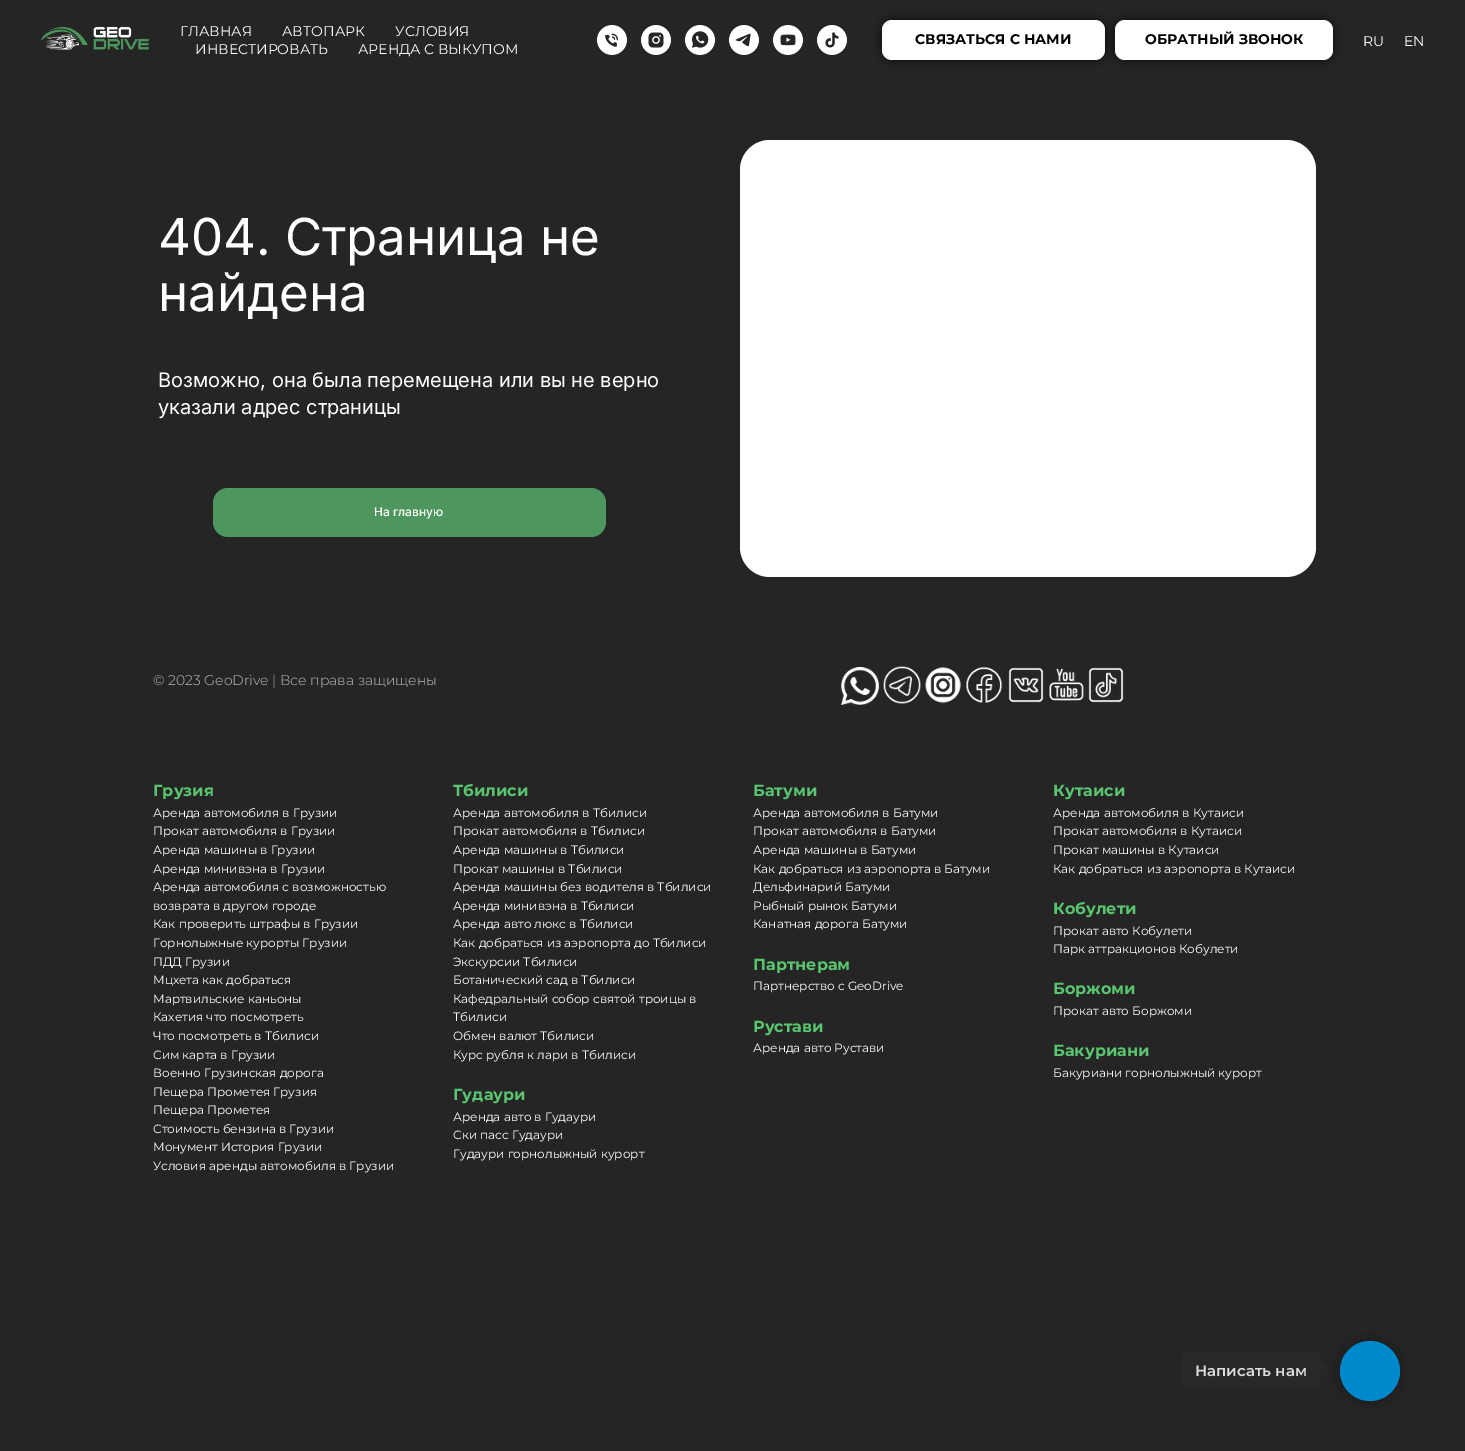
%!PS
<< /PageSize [1465 1451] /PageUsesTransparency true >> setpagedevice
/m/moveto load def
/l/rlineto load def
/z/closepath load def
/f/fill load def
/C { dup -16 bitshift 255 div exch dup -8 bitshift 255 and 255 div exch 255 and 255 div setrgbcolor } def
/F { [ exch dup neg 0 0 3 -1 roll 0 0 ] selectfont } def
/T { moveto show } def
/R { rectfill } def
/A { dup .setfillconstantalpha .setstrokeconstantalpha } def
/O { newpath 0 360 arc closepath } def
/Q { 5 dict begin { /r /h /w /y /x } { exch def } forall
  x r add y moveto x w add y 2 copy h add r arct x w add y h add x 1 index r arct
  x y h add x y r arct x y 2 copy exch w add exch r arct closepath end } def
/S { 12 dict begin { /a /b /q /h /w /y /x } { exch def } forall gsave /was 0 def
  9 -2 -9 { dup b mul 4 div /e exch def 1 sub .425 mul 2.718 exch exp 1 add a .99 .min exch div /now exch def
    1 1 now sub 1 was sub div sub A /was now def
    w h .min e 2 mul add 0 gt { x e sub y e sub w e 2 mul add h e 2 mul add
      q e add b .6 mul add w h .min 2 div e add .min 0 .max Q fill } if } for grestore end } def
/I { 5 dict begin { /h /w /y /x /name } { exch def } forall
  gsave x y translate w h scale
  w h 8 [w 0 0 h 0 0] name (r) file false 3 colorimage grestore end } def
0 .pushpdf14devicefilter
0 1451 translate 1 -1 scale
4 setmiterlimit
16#252525 C
0 0 1465 1451 R
(1.rgb) 40 26 109 24 I
/Montserrat-Regular 14 F
16#FFFFFF C
(ГЛАВНАЯ) 180 36 T
(АВТОПАРК) 282 36 T
(УСЛОВИЯ) 395 36 T
(ИНВЕСТИРОВАТЬ) 195 54 T
(АРЕНДА С ВЫКУПОМ) 358 54 T
(2.rgb) 597 25 30 30 I
(3.rgb) 641 25 30 30 I
(4.rgb) 685 25 30 30 I
(5.rgb) 729 25 30 30 I
(6.rgb) 773 25 30 30 I
(7.rgb) 817 25 30 30 I
16#000000 C
882 20 223 40 10 5 .8 S
16#FFFFFF C
882 20 223 40 10 Q f
/Montserrat-Bold 14 F
16#000000 C
(СВЯЗАТЬСЯ С НАМИ) 915 44 T
1115 20 218 40 10 5 .8 S
16#FFFFFF C
1115 20 218 40 10 Q f
16#000000 C
(ОБРАТНЫЙ ЗВОНОК) 1145 44 T
/Montserrat-Regular 14 F
16#FFFFFF C
(RU) 1363 46 T
(EN) 1404 46 T
/Inter-Regular 51 F
(404. Страница не) 158 255 T
(найдена) 158 311 T
740 140 576 437 30 Q f
/Inter-Regular 20 F
(Возможно, она была перемещена или вы не верно) 158 387 T
(указали адрес страницы) 158 414 T
16#4D975E C
213 488 393 49 15 Q f
/Inter-Medium 12 F
16#FFFFFF C
(На главную) 374 516 T
/Montserrat-Light 14 F
16#BEBEBE C
(© 2023 GeoDrive | Все права защищены) 153 685 T
(8.rgb) 841 667 38 38 I
(9.rgb) 882 665 39 39 I
(10.rgb) 924 666 38 38 I
(11.rgb) 965 666 38 37 I
(12.rgb) 1008 667 36 36 I
(13.rgb) 1049 668 35 33 I
(14.rgb) 1088 667 36 36 I
/Montserrat-Bold 16 F
16#59C570 C
(Грузия) 153 796 T
/Montserrat-Regular 12 F
16#FFFFFF C
(Аренда автомобиля в Грузии) 153 817 T
(Прокат автомобиля в Грузии) 153 835 T
(Аренда машины в Грузии) 153 854 T
(Аренда минивэна в Грузии) 153 873 T
(Аренда автомобиля с возможностью) 153 891 T
(возврата в другом городе) 153 910 T
(Как проверить штрафы в Грузии) 153 928 T
(Горнолыжные курорты Грузии) 153 947 T
(ПДД Грузии) 153 966 T
(Мцхета как добраться) 153 984 T
(Мартвильские каньоны) 153 1003 T
(Кахетия что посмотреть) 153 1021 T
(Что посмотреть в Тбилиси) 153 1040 T
(Сим карта в Грузии) 153 1059 T
(Военно Грузинская дорога) 153 1077 T
(Пещера Прометея Грузия) 153 1096 T
(Пещера Прометея) 153 1114 T
(Стоимость бензина в Грузии) 153 1133 T
(Монумент История Грузии) 153 1151 T
(Условия аренды автомобиля в Грузии) 153 1170 T
/Montserrat-Bold 16 F
16#59C570 C
(Тбилиси) 453 796 T
/Montserrat-Regular 12 F
16#FFFFFF C
(Аренда автомобиля в Тбилиси) 453 817 T
(Прокат автомобиля в Тбилиси) 453 835 T
(Аренда машины в Тбилиси) 453 854 T
(Прокат машины в Тбилиси) 453 873 T
(Аренда машины без водителя в Тбилиси) 453 891 T
(Аренда минивэна в Тбилиси) 453 910 T
(Аренда авто люкс в Тбилиси) 453 928 T
(Как добраться из аэропорта до Тбилиси) 453 947 T
(Экскурсии Тбилиси) 453 966 T
(Ботанический сад в Тбилиси) 453 984 T
(Кафедральный собор святой троицы в) 453 1003 T
(Тбилиси) 453 1021 T
(Обмен валют Тбилиси) 453 1040 T
(Курс рубля к лари в Тбилиси) 453 1059 T
/Montserrat-Bold 16 F
16#59C570 C
(Гудаури) 453 1100 T
/Montserrat-Regular 12 F
16#FFFFFF C
(Аренда авто в Гудаури) 453 1121 T
(Ски пасс Гудаури) 453 1139 T
(Гудаури горнолыжный курорт) 453 1158 T
/Montserrat-Bold 16 F
16#59C570 C
(Батуми) 753 796 T
/Montserrat-Regular 12 F
16#FFFFFF C
(Аренда автомобиля в Батуми) 753 817 T
(Прокат автомобиля в Батуми) 753 835 T
(Аренда машины в Батуми) 753 854 T
(Как добраться из аэропорта в Батуми) 753 873 T
(Дельфинарий Батуми) 753 891 T
(Рыбный рынок Батуми) 753 910 T
(Канатная дорога Батуми) 753 928 T
/Montserrat-Bold 16 F
16#59C570 C
(Партнерам) 753 970 T
/Montserrat-Regular 12 F
16#FFFFFF C
(Партнерство с GeoDrive) 753 990 T
/Montserrat-Bold 16 F
16#59C570 C
(Рустави) 753 1032 T
/Montserrat-Regular 12 F
16#FFFFFF C
(Аренда авто Рустави) 753 1052 T
/Montserrat-Bold 16 F
16#59C570 C
(Кутаиси) 1053 796 T
/Montserrat-Regular 12 F
16#FFFFFF C
(Аренда автомобиля в Кутаиси) 1053 817 T
(Прокат автомобиля в Кутаиси) 1053 835 T
(Прокат машины в Кутаиси) 1053 854 T
(Как добраться из аэропорта в Кутаиси) 1053 873 T
/Montserrat-Bold 16 F
16#59C570 C
(Кобулети) 1053 914 T
/Montserrat-Regular 12 F
16#FFFFFF C
(Прокат авто Кобулети) 1053 935 T
(Парк аттракционов Кобулети) 1053 953 T
/Montserrat-Bold 16 F
16#59C570 C
(Боржоми) 1053 994 T
/Montserrat-Regular 12 F
16#FFFFFF C
(Прокат авто Боржоми) 1053 1015 T
/Montserrat-Bold 16 F
16#59C570 C
(Бакуриани) 1053 1056 T
/Montserrat-Regular 12 F
16#FFFFFF C
(Бакуриани горнолыжный курорт) 1053 1077 T
16#282828 C
1182 1352 138 38 3 Q f
/Montserrat-SemiBold 15 F
16#DEDEDE C
(Написать нам) 1195 1376 T
16#282828 C
1320 1381 m 0 -20 l 10 10 l z f
16#000000 C
1340 1341 60 60 30 10 .3 S
16#0088CC C
1370 1371 30 O f
.poppdf14devicefilter showpage
